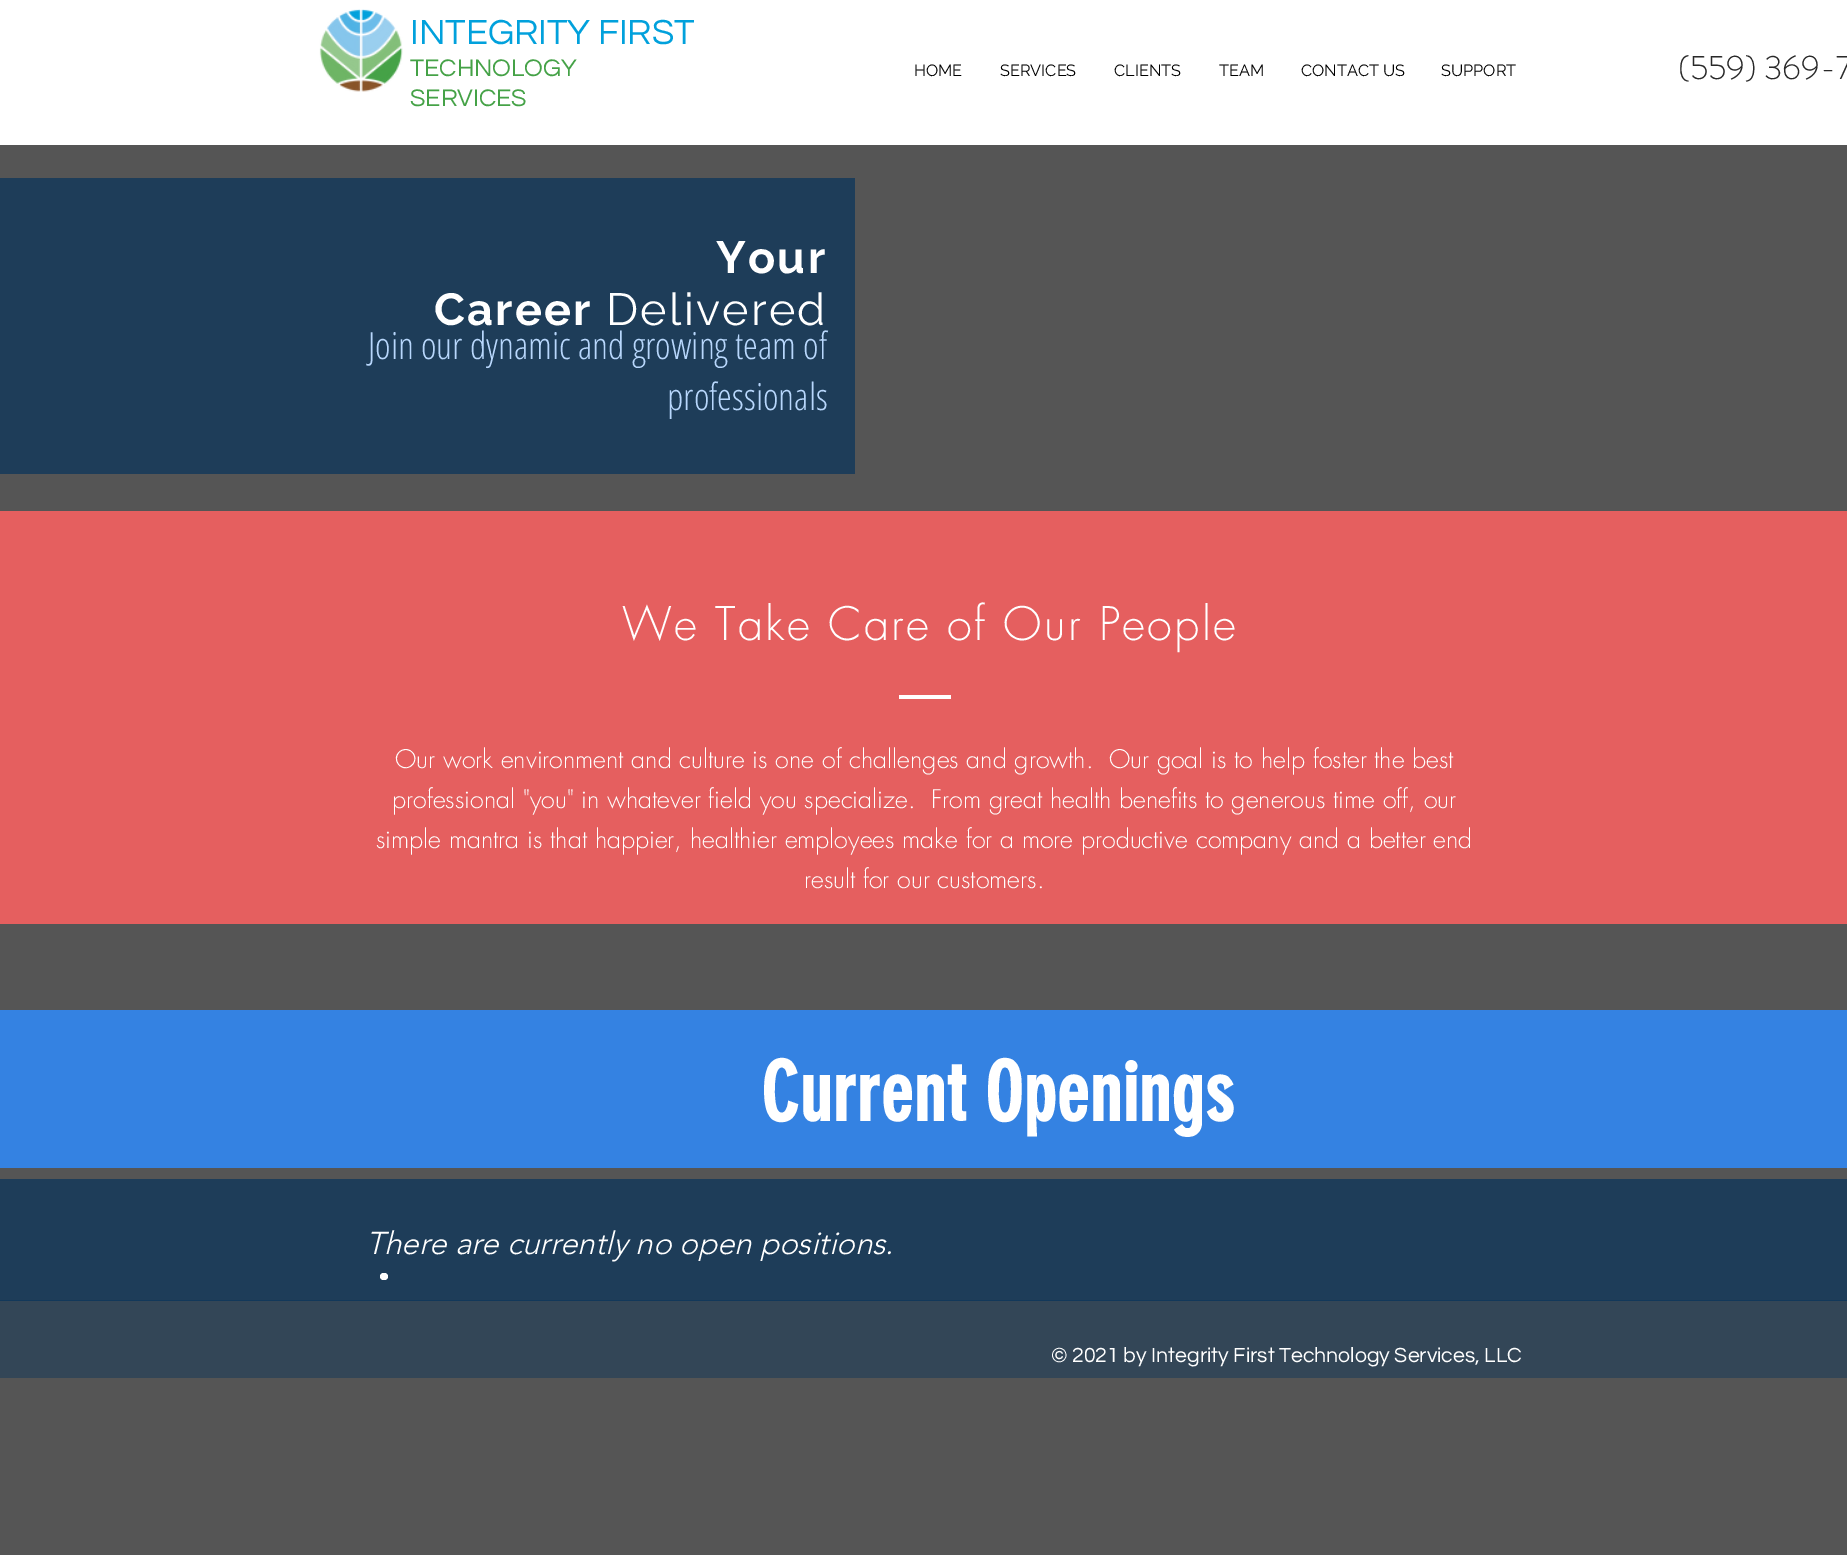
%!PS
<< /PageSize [1847 1555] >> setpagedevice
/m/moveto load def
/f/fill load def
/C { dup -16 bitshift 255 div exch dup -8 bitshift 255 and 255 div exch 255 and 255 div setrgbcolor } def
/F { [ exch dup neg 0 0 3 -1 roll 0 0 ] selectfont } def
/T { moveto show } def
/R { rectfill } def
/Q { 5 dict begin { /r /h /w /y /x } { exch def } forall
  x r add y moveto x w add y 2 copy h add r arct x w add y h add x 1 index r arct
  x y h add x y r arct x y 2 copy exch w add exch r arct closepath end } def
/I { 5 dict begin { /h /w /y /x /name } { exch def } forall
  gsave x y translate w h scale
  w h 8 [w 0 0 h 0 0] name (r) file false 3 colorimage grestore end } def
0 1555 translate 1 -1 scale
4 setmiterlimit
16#555555 C
0 0 1847 1555 R
16#FFFFFF C
0 0 1847 145 R
(1.rgb) 319 9 84 83 I
/Questrial-Regular 36.25 F
16#01A1DC C
(INTEGRITY FIRST) 410 44 T
/Questrial-Regular 25 F
16#45A247 C
(TECHNOLOGY) 410 76 T
(SERVICES) 410 106 T
/Raleway-Regular 16.25 F
16#000000 C
(HOME) 914 76 T
(SERVICES) 1000 76 T
(CLIENTS) 1114 76 T
(TEAM) 1219 76 T
(CONTACT US) 1301 76 T
(SUPPORT) 1441 76 T
/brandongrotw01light-Light 33.75 F
16#292929 C
(\(559\) 369-7) 1678 79 T
16#1E3D59 C
0 178 855 296 R
/Raleway-Bold 45 F
16#FFFFFF C
716 273 m 2.25 0 (Your) ashow
434 325 m 2.25 0 (Career) ashow
/Raleway-Regular 45 F
606 325 m 2.25 0 (Delivered) ashow
/OpenSansCondensed-Light 37.5 F
16#B8D7FC C
(Join our dynamic and growing team of) 368 359 T
(professionals) 667 410 T
16#E55F5F C
0 511 1847 413 R
/futura-Light 45 F
16#FFFFFF C
622 640 m 2.25 0 (We Take Care of Our People) ashow
899 695 52 4 R
/futura-Light 25 F
(Our work environment and culture is one of challenges and growth.  Our goal is to help foster the best) 395 768 T
(professional "you" in whatever field you specialize.  From great health benefits to generous time off, our) 392 808 T
(simple mantra is that happier, healthier employees make for a more productive company and a better end) 376 848 T
(result for our customers.) 804 888 T
16#3482E2 C
0 1010 1847 158 R
/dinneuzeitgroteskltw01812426-Bold 81.25 F
16#FFFFFF C
(Current Openings) 761 1121 T
16#1E3D59 C
0 1179 1847 121 R
16#12385A C
0 1300 1847 1 R
/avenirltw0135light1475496-LightItalic 31.25 F
16#FFFFFF C
(There are currently no open positions.) 366 1254 T
380 1273 8 7 3.5 Q f
16#334657 C
0 1301 1847 77 R
/Questrial-Regular 21.25 F
16#FFFFFF C
(© 2021 by Integrity First Technology Services, LLC) 1051 1362 T
showpage
